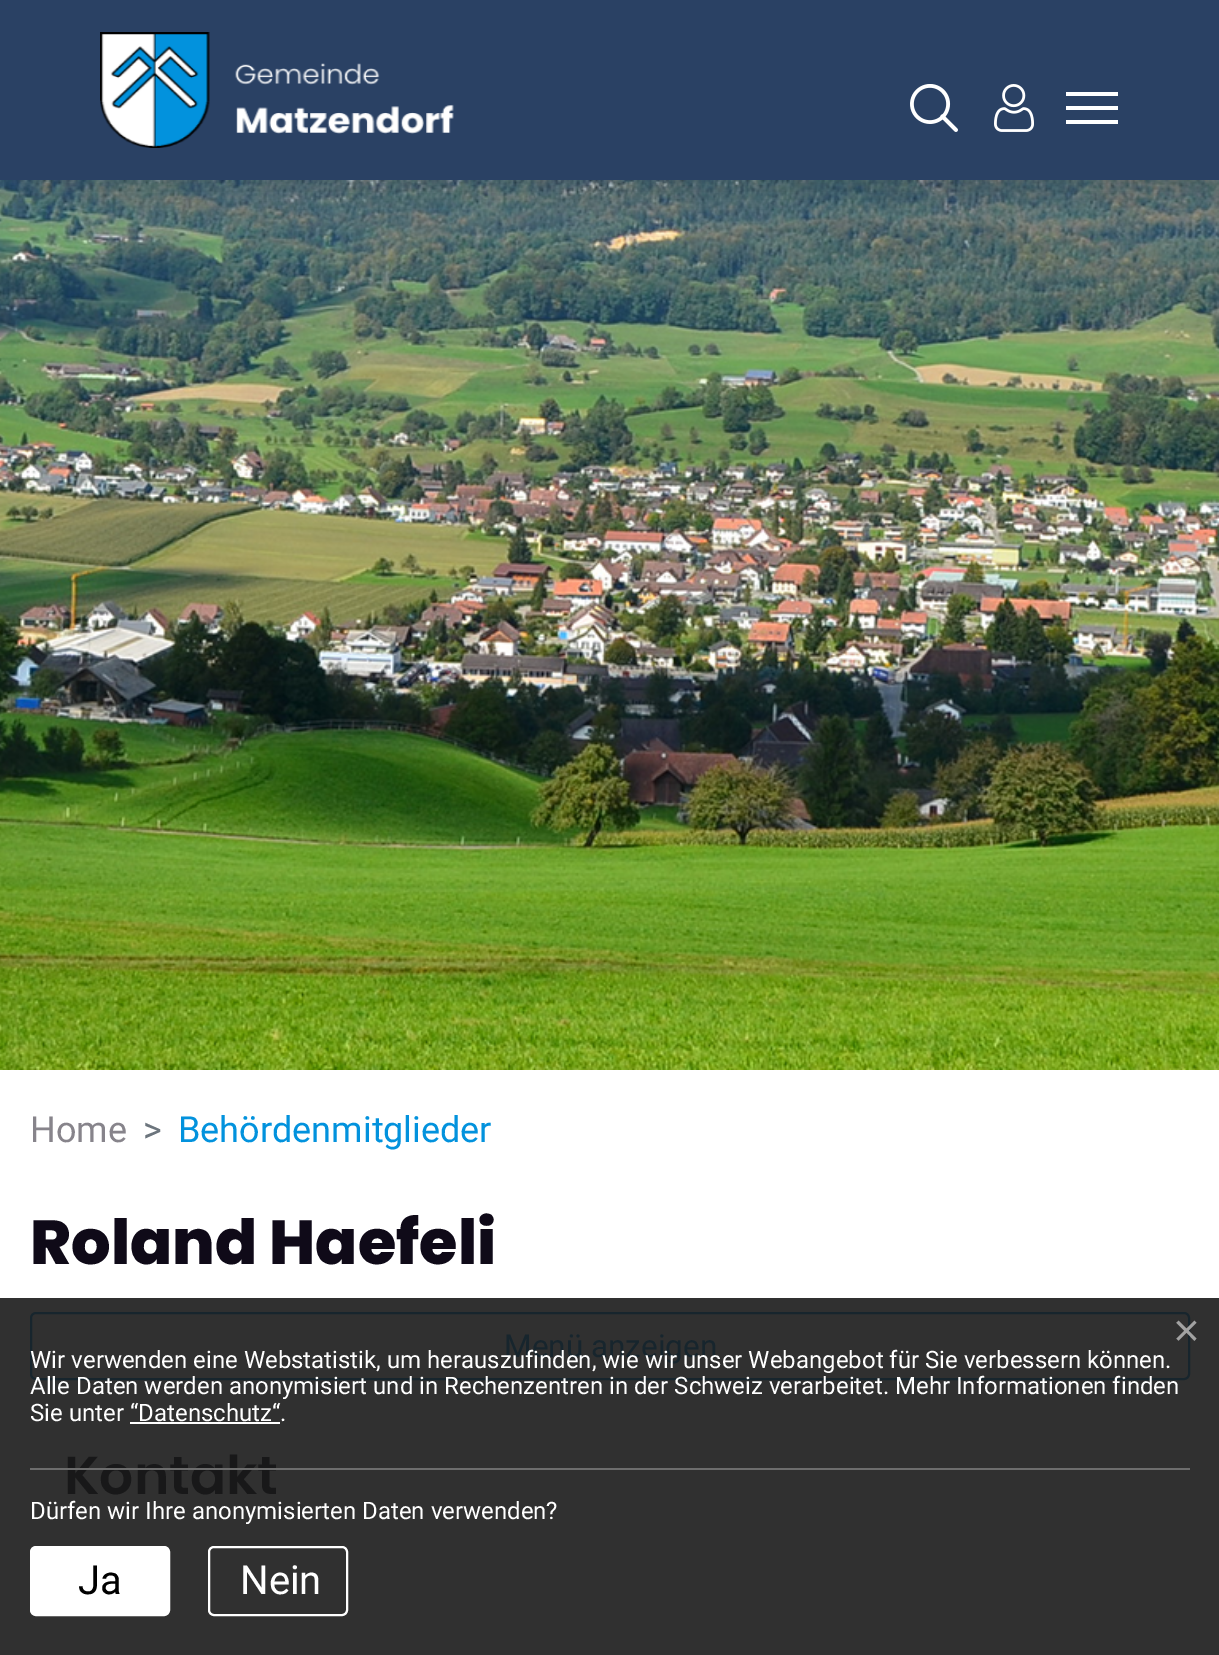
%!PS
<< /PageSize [1219 1655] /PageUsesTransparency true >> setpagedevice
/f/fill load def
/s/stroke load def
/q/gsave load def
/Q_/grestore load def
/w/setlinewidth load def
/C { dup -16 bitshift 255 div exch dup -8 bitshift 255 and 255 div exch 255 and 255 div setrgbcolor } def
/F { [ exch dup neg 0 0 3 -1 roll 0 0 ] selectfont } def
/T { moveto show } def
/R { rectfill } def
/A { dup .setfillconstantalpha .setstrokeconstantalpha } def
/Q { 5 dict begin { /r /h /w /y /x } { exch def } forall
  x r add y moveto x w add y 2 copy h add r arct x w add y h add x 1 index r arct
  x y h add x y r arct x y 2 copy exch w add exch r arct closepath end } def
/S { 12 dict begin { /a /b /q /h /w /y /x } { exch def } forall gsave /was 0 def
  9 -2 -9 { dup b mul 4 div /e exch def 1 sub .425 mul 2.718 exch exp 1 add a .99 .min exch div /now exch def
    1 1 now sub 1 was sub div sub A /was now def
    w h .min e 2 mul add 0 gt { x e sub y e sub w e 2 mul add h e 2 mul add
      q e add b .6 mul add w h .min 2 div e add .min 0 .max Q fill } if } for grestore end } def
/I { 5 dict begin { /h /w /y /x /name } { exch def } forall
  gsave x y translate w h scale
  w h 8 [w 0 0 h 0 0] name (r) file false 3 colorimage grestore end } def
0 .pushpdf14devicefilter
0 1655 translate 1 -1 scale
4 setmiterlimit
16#FFFFFF C
0 0 1219 1655 R
16#303030 C
0 1298 1219 357 R
(4.rgb) 0 180 1219 890 I
16#000000 C
0 16 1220 180 0 16 .15 S
16#2A4164 C
0 0 1219 180 R
(1.rgb) 100 32 354 116 I
(2.rgb) 910 84 48 48 I
(3.rgb) 994 84 40 48 I
16#FFFFFF C
1066 92 52 4 R
1066 106 52 4 R
1066 120 52 4 R
/Roboto-Regular 36 F
16#87848B C
(Home) 30 1142 T
16#6C757D C
(>) 143 1142 T
16#0292DD C
(Behördenmitglieder) 178 1142 T
/Poppins-ExtraBold 62.25 F
16#0F0A18 C
(Roland Haefeli) 30 1264 T
16#17252D C
2 w
31 1313 1158 66 5 Q s
/Roboto-Regular 31.5 F
(Menü anzeigen) 504 1357 T
/Poppins-SemiBold 53.5 F
16#181819 C
(Kontakt) 64 1494 T
/LiberationSans-Regular 46 F
16#A2A2A2 C
(×) 1173 1346 T
16#6D6D6D C
30 1468 1160 2 R
/Roboto-Regular 24 F
16#FFFFFF C
(Wir verwenden eine Webstatistik, um herauszufinden, wie wir unser Webangebot für Sie verbessern können.) 30 1368 T
(Alle Daten werden anonymisiert und in Rechenzentren in der Schweiz verarbeitet. Mehr Informationen finden) 30 1394 T
(Sie unter “Datenschutz“.) 30 1421 T
130 1422 150 2 R
(Dürfen wir Ihre anonymisierten Daten verwenden?) 30 1519 T
31 1547 138 68 5 Q q f Q_
s
/Roboto-Regular 40 F
16#000000 C
(Ja) 78 1594 T
16#FFFFFF C
209 1547 138 68 5 Q s
(Nein) 240 1594 T
.poppdf14devicefilter showpage
